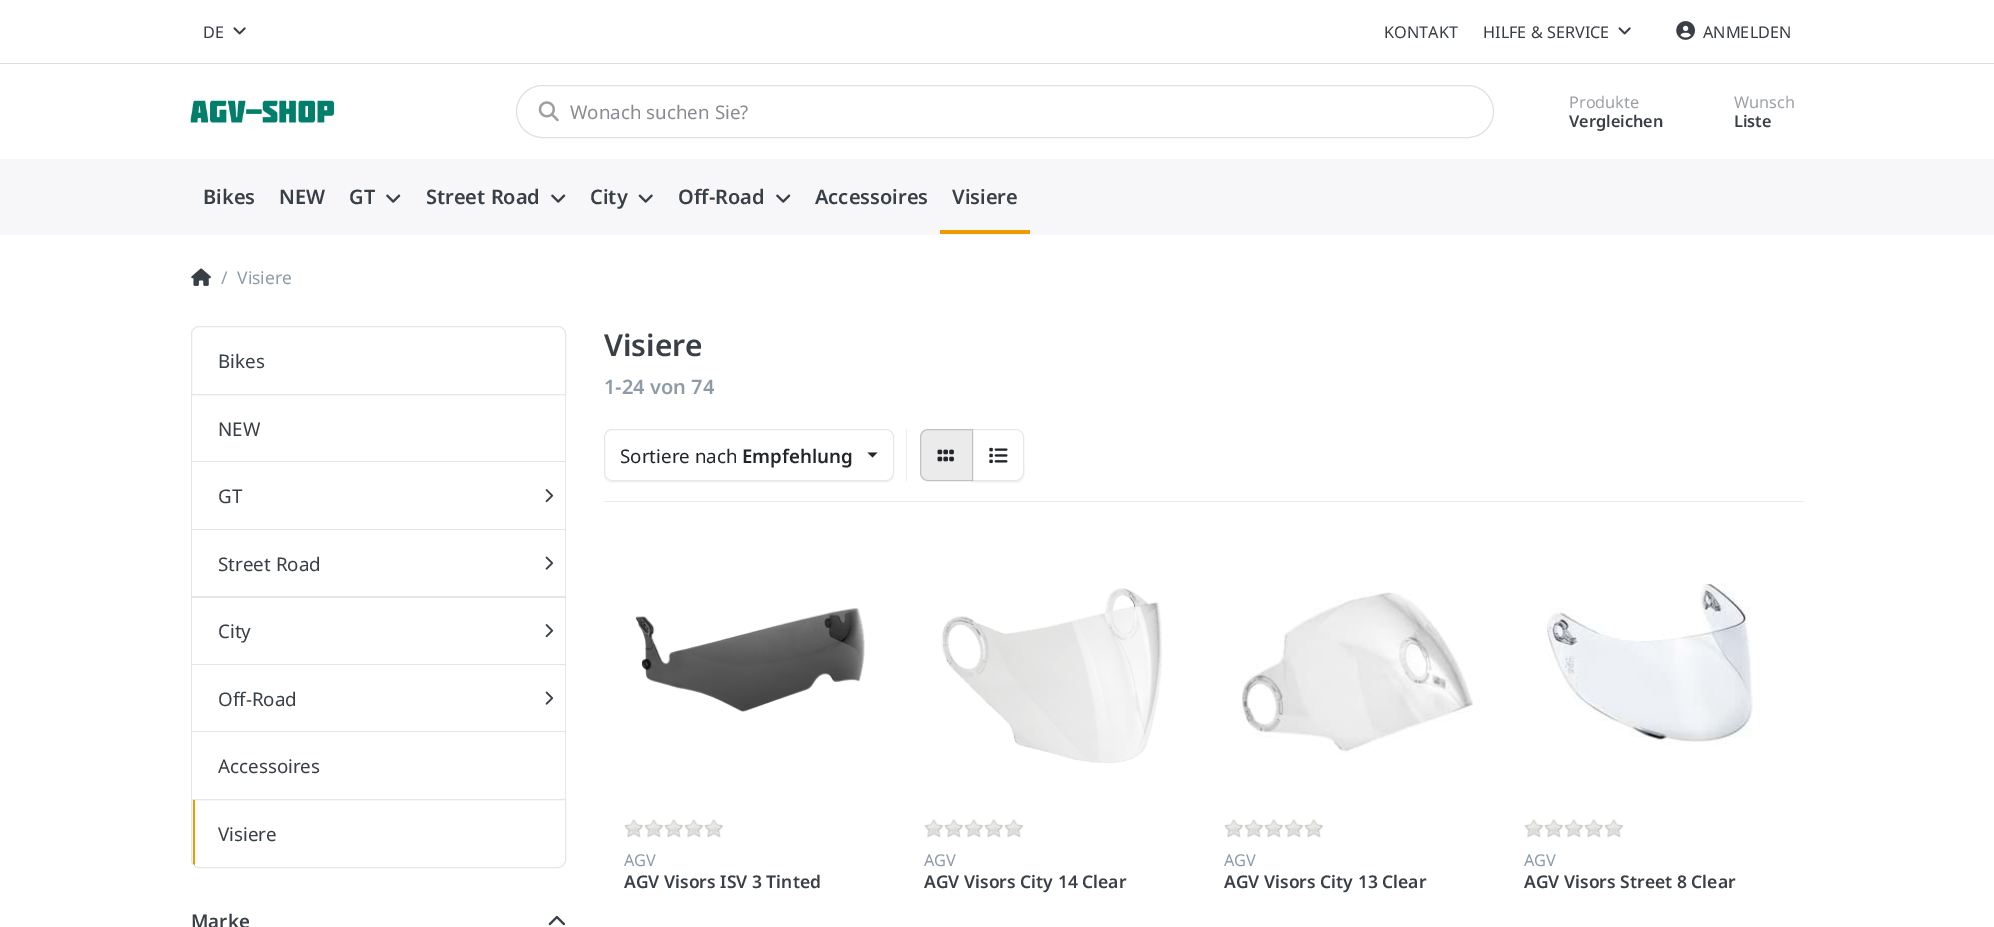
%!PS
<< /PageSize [1994 927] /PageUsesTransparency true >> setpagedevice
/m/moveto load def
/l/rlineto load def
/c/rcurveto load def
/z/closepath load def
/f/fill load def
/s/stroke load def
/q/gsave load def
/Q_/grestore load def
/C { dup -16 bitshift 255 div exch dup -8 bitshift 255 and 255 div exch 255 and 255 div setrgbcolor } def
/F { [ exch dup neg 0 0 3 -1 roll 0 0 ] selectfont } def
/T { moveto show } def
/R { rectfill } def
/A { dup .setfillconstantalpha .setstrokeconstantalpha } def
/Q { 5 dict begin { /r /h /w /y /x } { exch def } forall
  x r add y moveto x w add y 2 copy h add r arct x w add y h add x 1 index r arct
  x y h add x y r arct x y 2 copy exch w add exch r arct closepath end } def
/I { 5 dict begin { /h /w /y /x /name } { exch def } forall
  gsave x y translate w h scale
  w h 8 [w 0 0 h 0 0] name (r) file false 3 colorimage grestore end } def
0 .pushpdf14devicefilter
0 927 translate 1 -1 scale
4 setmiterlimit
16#FFFFFF C
0 0 1994 927 R
16#DDDDDD C
0 63 1994 1 R
/NotoSans-Regular 16.25 F
16#393F46 C
(DE) 203 38 T
(1.rgb) 233 27 13 8 I
(KONTAKT) 1384 38 T
(HILFE & SERVICE) 1483 38 T
(1.rgb) 1618 27 13 8 I
(2.rgb) 1676 21 19 19 I
(ANMELDEN) 1703 38 T
(3.rgb) 189 99 146 25 I
16#E0E0E0 C
516.5 85.5 977 52 26 Q s
(4.rgb) 538 101 21 21 I
/NotoSans-Regular 18.75 F
16#888C90 C
(Wonach suchen Sie?) 570 119 T
/NotoSans-Regular 16.25 F
16#9C9FA3 C
(Produkte) 1569 108 T
/NotoSans-SemiBold 16.25 F
16#393F46 C
(Vergleichen) 1569 127 T
/NotoSans-Regular 16.25 F
16#9C9FA3 C
(Wunsch) 1734 108 T
/NotoSans-SemiBold 16.25 F
16#393F46 C
(Liste) 1734 127 T
16#F7F7F9 C
0 159 1994 76 R
/NotoSans-SemiBold 20 F
16#393F46 C
(Bikes) 203 204 T
(NEW) 279 204 T
(GT) 349 204 T
(5.rgb) 386 194 15 9 I
(Street Road) 426 204 T
(5.rgb) 551 194 15 9 I
(City) 590 204 T
(6.rgb) 638 194 15 9 I
(Off-Road) 678 204 T
(5.rgb) 776 194 15 9 I
(Accessoires) 815 204 T
(Visiere) 952 204 T
16#EE9B00 C
940 230 90 4 R
(7.rgb) 191 268 20 18 I
/NotoSans-Regular 17.5 F
16#8D9BA9 C
(/) 221 284 T
(Visiere) 237 284 T
16#E6E6E6 C
199 326.5 m 359 0 l 4 0 7.5 3.5 7.5 7.5 c 0 60.5 l -374 0 l 0 -60.5 l 0 -4 3.5 -7.5 7.5 -7.5 c z s
/NotoSans-Regular 18.75 F
16#393F46 C
(Bikes) 218 368 T
16#E6E6E6 C
566 395 m 0 67 l -1 -1 l 0 -66 l z f
0.1 A
16#000000 C
566 462 m -375 0 l 1 -1 l 373 0 l z f
191 462 m 0 -67 l 1 0 l 0 66 l z f
1 A
16#393F46 C
(NEW) 218 436 T
16#E6E6E6 C
566 462 m 0 68 l -1 -1 l 0 -67 l z f
0.1 A
16#000000 C
566 530 m -375 0 l 1 -1 l 373 0 l z f
191 530 m 0 -68 l 1 0 l 0 67 l z f
1 A
16#393F46 C
(GT) 218 503 T
(8.rgb) 545 489 9 14 I
16#E6E6E6 C
566 530 m 0 68 l -1 -2 l 0 -66 l z f
0.1 A
16#000000 C
566 598 m -375 0 l 1 -2 l 373 0 l z f
191 598 m 0 -68 l 1 0 l 0 66 l z f
1 A
16#393F46 C
(Street Road) 218 571 T
(9.rgb) 545 556 9 14 I
16#E6E6E6 C
566 598 m 0 67 l -1 -1 l 0 -66 l z f
0.1 A
16#000000 C
566 665 m -375 0 l 1 -1 l 373 0 l z f
191 665 m 0 -67 l 1 0 l 0 66 l z f
1 A
16#393F46 C
(City) 218 638 T
(8.rgb) 545 624 9 14 I
16#E6E6E6 C
566 665 m 0 67 l -1 -1 l 0 -66 l z f
0.1 A
16#000000 C
566 732 m -375 0 l 1 -1 l 373 0 l z f
191 732 m 0 -67 l 1 0 l 0 66 l z f
1 A
16#393F46 C
(Off-Road) 218 706 T
(9.rgb) 545 691 9 14 I
16#E6E6E6 C
566 732 m 0 68 l -1 -1 l 0 -67 l z f
0.1 A
16#000000 C
191 800 m 0 -68 l 1 0 l 0 67 l z f
1 A
16#393F46 C
(Accessoires) 218 773 T
16#FFFFFF C
191.5 799.5 m 374 0 l 0 60.5 l 0 4 -3.5 7.5 -7.5 7.5 c -359 0 l -4 0 -7.5 -3.5 -7.5 -7.5 c z q f Q_
16#E6E6E6 C
s
q
193 800 m 372 0 l 0 60 l 0 3.5 -2.5 6 -6 6 c -360 0 l -3.5 0 -6 -2.5 -6 -6 c z clip newpath
16#EE9B00 C
193 800 2 66 R
Q_
16#393F46 C
(Visiere) 218 841 T
/NotoSans-SemiBold 18.75 F
(Marke) 191 928 T
(10.rgb) 548 915 17 11 I
/NotoSans-SemiBold 30 F
(Visiere) 604 356 T
/NotoSans-SemiBold 20 F
16#8D9BA9 C
(1-24 von 74) 604 394 T
16#E9ECEF C
604 501 1200 1 R
16#F6F6F6 C
604 476 m 0 4 4 7 8 7 c 274 0 l 4 0 8 -4 8 -8 c 0 -39 l 0 38 l 0 4 -4 7 -8 7 c -275 0 l -3 0 -6 -2 -7 -5 c z f
16#E6E7E8 C
604.5 429.5 289 51 7.5 Q s
/NotoSans-Regular 18.75 F
16#22262A C
(Sortiere nach) 620 463 T
/NotoSans-SemiBold 18.75 F
(Empfehlung) 742 463 T
867.5 452.5 m 10 0 l -5 5 l z f
16#EBEEF0 C
906 429 1 52 R
16#F6F6F6 C
971 430 m 0 53 l 47 0 l 9 -2 6 -14 6 -20 c 0 -27 l 0 25 l 0 6 2 18 -6 20 c -47 0 l z f
16#FFFFFF C
971 429 m 45 0 l 4.5 0 8 3.5 8 8 c 0 36 l 0 4.5 -3.5 8 -8 8 c -45 0 l z f
0.15 A
16#596167 C
971.5 429.5 m 44.5 0 l 4 0 7.5 3.5 7.5 7.5 c 0 36 l 0 4 -3.5 7.5 -7.5 7.5 c -44.5 0 l z s
1 A
16#EBEBEB C
928 429 m 45 0 l 0 52 l -45 0 l -4.5 0 -8 -3.5 -8 -8 c 0 -36 l 0 -4.5 3.5 -8 8 -8 c z f
0.3 A
16#596167 C
928 429.5 m 44.5 0 l 0 51 l -44.5 0 l -4 0 -7.5 -3.5 -7.5 -7.5 c 0 -36 l 0 -4 3.5 -7.5 7.5 -7.5 c z s
1 A
(11.rgb) 937 449 17 13 I
(12.rgb) 989 447 19 17 I
(13.rgb) 635 607 230 106 I
(14.rgb) 624 819 100 19 I
/NotoSans-Regular 16.25 F
16#8D9BA9 C
(AGV) 624 866 T
/NotoSans-SemiBold 17.5 F
16#393F46 C
(AGV Visors ISV 3 Tinted) 624 888 T
(15.rgb) 941 588 221 175 I
(16.rgb) 924 819 100 19 I
/NotoSans-Regular 16.25 F
16#8D9BA9 C
(AGV) 924 866 T
/NotoSans-SemiBold 17.5 F
16#393F46 C
(AGV Visors City 14 Clear) 924 888 T
(17.rgb) 1240 592 233 162 I
(18.rgb) 1224 819 100 19 I
/NotoSans-Regular 16.25 F
16#8D9BA9 C
(AGV) 1224 866 T
/NotoSans-SemiBold 17.5 F
16#393F46 C
(AGV Visors City 13 Clear) 1224 888 T
(19.rgb) 1541 583 212 162 I
(20.rgb) 1524 819 100 19 I
/NotoSans-Regular 16.25 F
16#8D9BA9 C
(AGV) 1524 866 T
/NotoSans-SemiBold 17.5 F
16#393F46 C
(AGV Visors Street 8 Clear) 1524 888 T
.poppdf14devicefilter showpage
